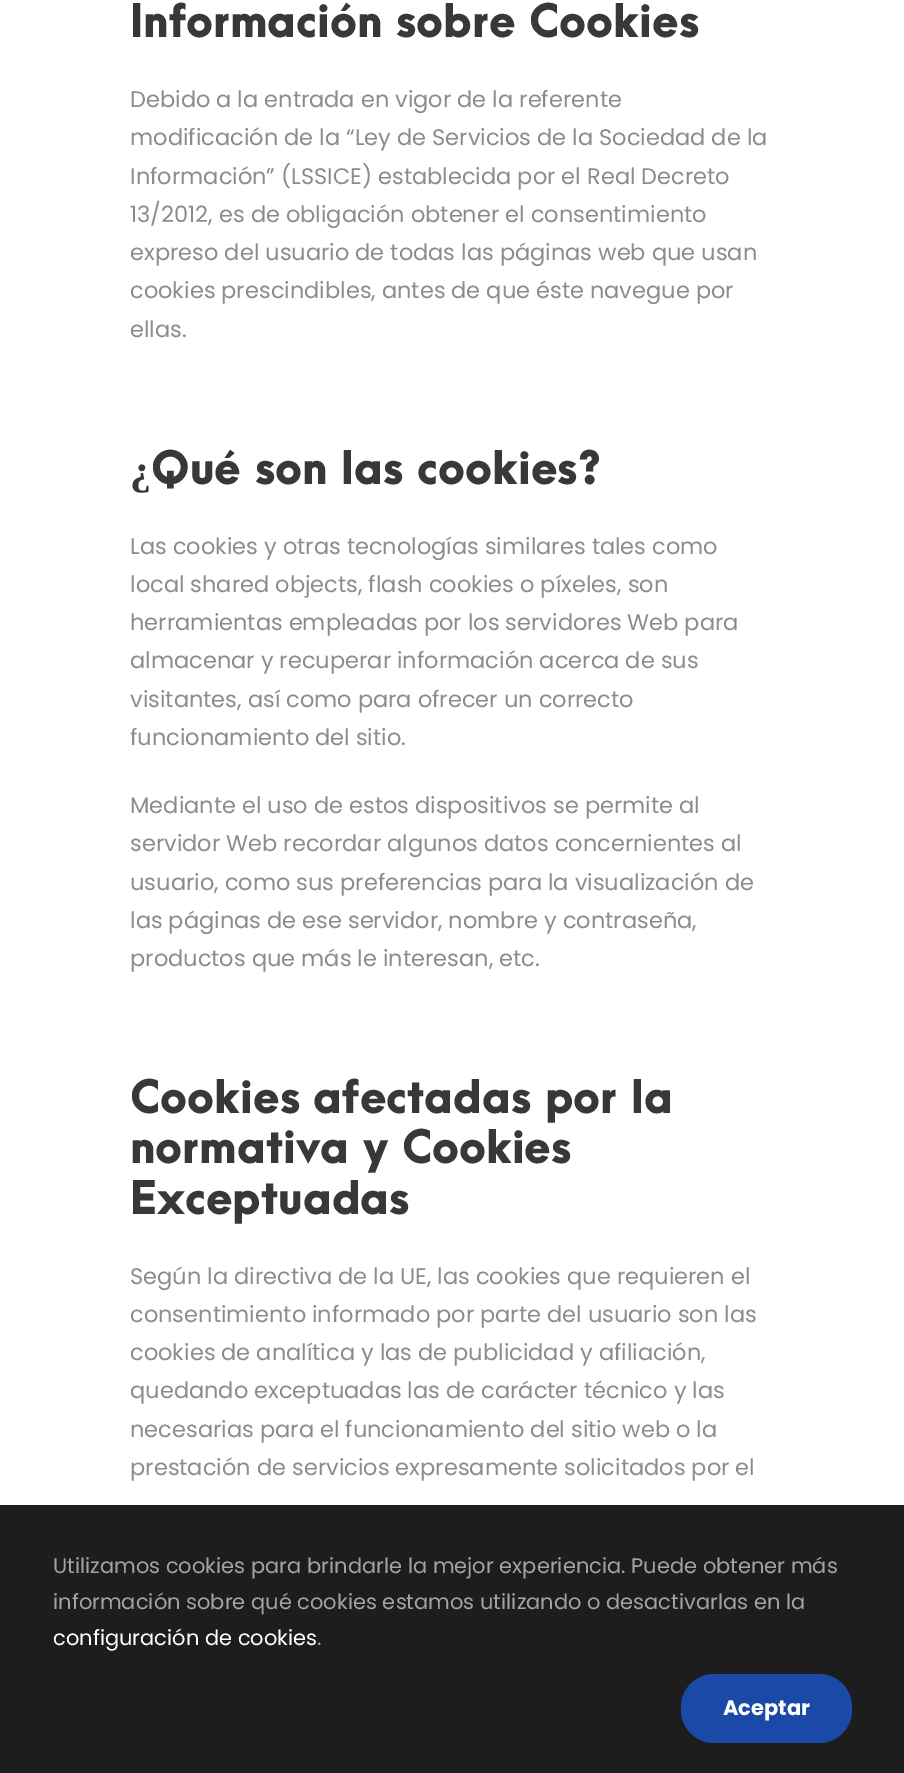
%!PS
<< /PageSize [904 1773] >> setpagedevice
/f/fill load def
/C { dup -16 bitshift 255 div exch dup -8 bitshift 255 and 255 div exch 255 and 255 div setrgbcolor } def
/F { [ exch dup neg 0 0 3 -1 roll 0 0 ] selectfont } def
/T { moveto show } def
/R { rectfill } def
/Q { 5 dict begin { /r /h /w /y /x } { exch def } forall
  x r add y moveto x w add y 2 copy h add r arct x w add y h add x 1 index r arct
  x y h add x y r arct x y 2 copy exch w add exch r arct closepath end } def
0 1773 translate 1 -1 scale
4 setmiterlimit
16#FFFFFF C
0 0 904 1773 R
/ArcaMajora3-Black 42 F
16#383838 C
(Información sobre Cookies) 130 37 T
/Poppins-Regular 22.5 F
16#8C8C8C C
(Debido a la entrada en vigor de la referente) 130 107 T
(modificación de la “Ley de Servicios de la Sociedad de la) 130 145 T
(Información” \(LSSICE\) establecida por el Real Decreto) 130 184 T
(13/2012, es de obligación obtener el consentimiento) 130 222 T
(expreso del usuario de todas las páginas web que usan) 130 260 T
(cookies prescindibles, antes de que éste navegue por) 130 298 T
(ellas.) 130 337 T
/LiberationSerif-Bold 42 F
16#383838 C
(¿) 130 484 T
/ArcaMajora3-Black 42 F
(Qué son las cookies?) 151 484 T
/Poppins-Regular 22.5 F
16#8C8C8C C
(Las cookies y otras tecnologías similares tales como) 130 554 T
(local shared objects, flash cookies o píxeles, son) 130 592 T
(herramientas empleadas por los servidores Web para) 130 630 T
(almacenar y recuperar información acerca de sus) 130 668 T
(visitantes, así como para ofrecer un correcto) 130 707 T
(funcionamiento del sitio.) 130 745 T
(Mediante el uso de estos dispositivos se permite al) 130 813 T
(servidor Web recordar algunos datos concernientes al) 130 851 T
(usuario, como sus preferencias para la visualización de) 130 890 T
(las páginas de ese servidor, nombre y contraseña,) 130 928 T
(productos que más le interesan, etc.) 130 966 T
/ArcaMajora3-Black 42 F
16#383838 C
(Cookies afectadas por la) 130 1113 T
(normativa y Cookies) 130 1163 T
(Exceptuadas) 130 1214 T
/Poppins-Regular 22.5 F
16#8C8C8C C
(Según la directiva de la UE, las cookies que requieren el) 130 1284 T
(consentimiento informado por parte del usuario son las) 130 1322 T
(cookies de analítica y las de publicidad y afiliación,) 130 1360 T
(quedando exceptuadas las de carácter técnico y las) 130 1398 T
(necesarias para el funcionamiento del sitio web o la) 130 1437 T
(prestación de servicios expresamente solicitados por el) 130 1475 T
16#1D1D1D C
0 1505 904 268 R
/Poppins-Regular 21 F
16#A3A3A3 C
(Utilizamos cookies para brindarle la mejor experiencia. Puede obtener más) 53 1573 T
(información sobre qué cookies estamos utilizando o desactivarlas en la) 53 1609 T
16#FFFFFF C
(configuración de cookies) 53 1645 T
16#A3A3A3 C
(.) 317 1645 T
16#1A49A8 C
681 1674 171 69 33 Q f
/Poppins-Bold 21 F
16#FFFFFF C
(Aceptar) 723 1715 T
showpage
